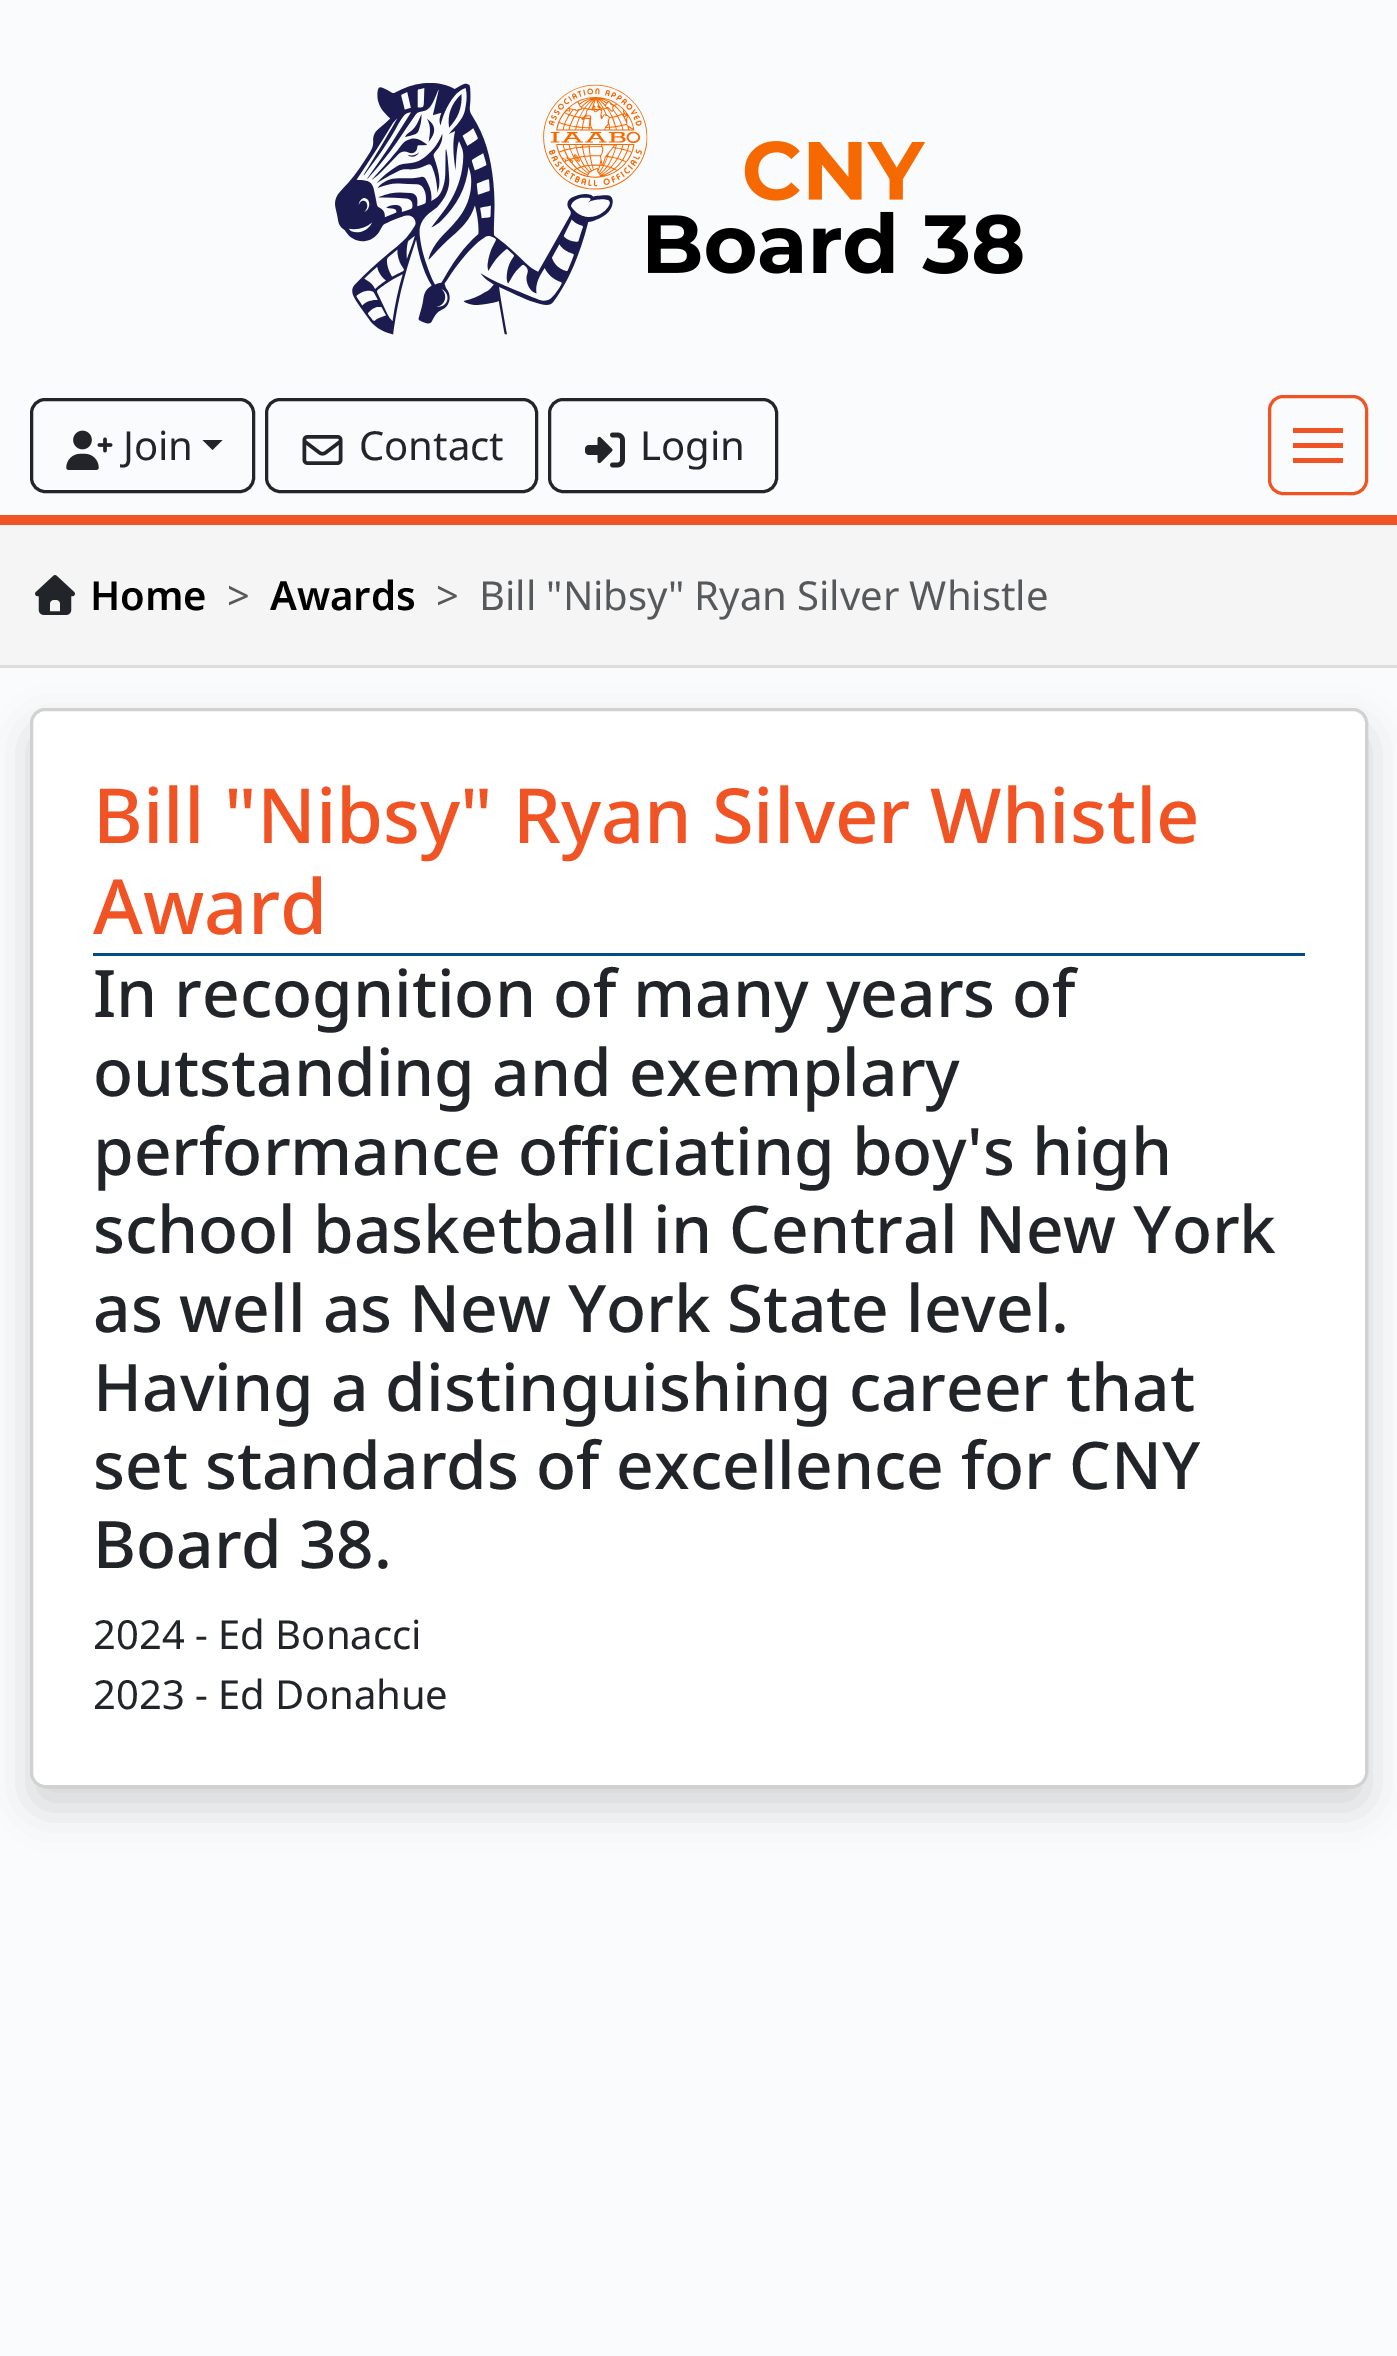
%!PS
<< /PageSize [1397 2356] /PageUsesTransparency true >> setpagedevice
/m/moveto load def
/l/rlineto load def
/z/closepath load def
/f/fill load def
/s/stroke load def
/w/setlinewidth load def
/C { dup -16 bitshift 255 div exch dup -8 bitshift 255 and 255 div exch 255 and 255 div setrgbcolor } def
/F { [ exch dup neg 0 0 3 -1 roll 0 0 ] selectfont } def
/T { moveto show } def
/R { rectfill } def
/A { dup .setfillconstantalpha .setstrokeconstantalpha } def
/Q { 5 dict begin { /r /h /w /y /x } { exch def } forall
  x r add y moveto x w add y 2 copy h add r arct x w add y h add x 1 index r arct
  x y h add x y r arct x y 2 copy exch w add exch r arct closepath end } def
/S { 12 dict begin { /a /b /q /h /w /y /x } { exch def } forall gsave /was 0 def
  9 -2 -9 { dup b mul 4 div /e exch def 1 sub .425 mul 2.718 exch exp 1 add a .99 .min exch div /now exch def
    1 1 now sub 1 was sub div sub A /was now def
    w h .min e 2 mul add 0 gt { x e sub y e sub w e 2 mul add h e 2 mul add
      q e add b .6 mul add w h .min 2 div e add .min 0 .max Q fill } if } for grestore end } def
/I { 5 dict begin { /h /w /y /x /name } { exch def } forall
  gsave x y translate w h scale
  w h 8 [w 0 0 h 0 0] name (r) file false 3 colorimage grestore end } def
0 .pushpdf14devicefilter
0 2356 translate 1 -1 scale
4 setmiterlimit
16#F9FBFD C
0 0 1397 2356 R
16#F05324 C
0 515 1397 10 R
(1.rgb) 335 83 313 252 I
(2.rgb) 648 141 375 133 I
16#212529 C
3 w
31.5 399.5 222 92 13.5 Q s
(3.rgb) 66 430 47 40 I
/NotoSans-Regular 40 F
(Join) 123 460 T
202.5 440 m 20 0 l -10 10 l z f
266.5 399.5 270 92 13.5 Q s
(4.rgb) 302 435 41 30 I
(Contact) 359 460 T
549.5 399.5 227 92 13.5 Q s
(5.rgb) 585 432 40 36 I
(Login) 640 460 T
16#F05324 C
1269.5 396.5 97 97 13.5 Q s
1293 428 50 5 R
1293 443 50 5 R
1293 458 50 5 R
16#F5F5F5 C
0 525 1397 140 R
16#DDDDDD C
0 665 1397 3 R
(6.rgb) 35 575 40 40 I
/NotoSans-SemiBold 40 F
16#000000 C
(Home) 90 610 T
/NotoSans-Regular 40 F
16#56595C C
(>) 227 610 T
/NotoSans-SemiBold 40 F
16#000000 C
(Awards) 270 610 T
/NotoSans-Regular 40 F
16#56595C C
(>) 436 610 T
(Bill "Nibsy" Ryan Silver Whistle) 479 610 T
16#000000 C
30 728 1338 1080 15 20 .15 S
16#FFFFFF C
30 708 1338 1080 15 Q f
0.18 A
16#000000 C
31.5 709.5 1335 1077 13.5 Q s
1 A
16#004C8D C
93 953 1212 3 R
/NotoSans-Medium 76 F
16#F05324 C
(Bill "Nibsy" Ryan Silver Whistle) 93 843 T
(Award) 93 934 T
/NotoSans-Medium 65.6 F
16#212529 C
(In recognition of many years of) 93 1017 T
(outstanding and exemplary) 93 1096 T
(performance officiating boy's high) 93 1175 T
(school basketball in Central New York) 93 1253 T
(as well as New York State level.) 93 1332 T
(Having a distinguishing career that) 93 1411 T
(set standards of excellence for CNY) 93 1489 T
(Board 38.) 93 1568 T
/NotoSans-Regular 40 F
(2024 - Ed Bonacci) 93 1649 T
(2023 - Ed Donahue) 93 1709 T
.poppdf14devicefilter showpage
